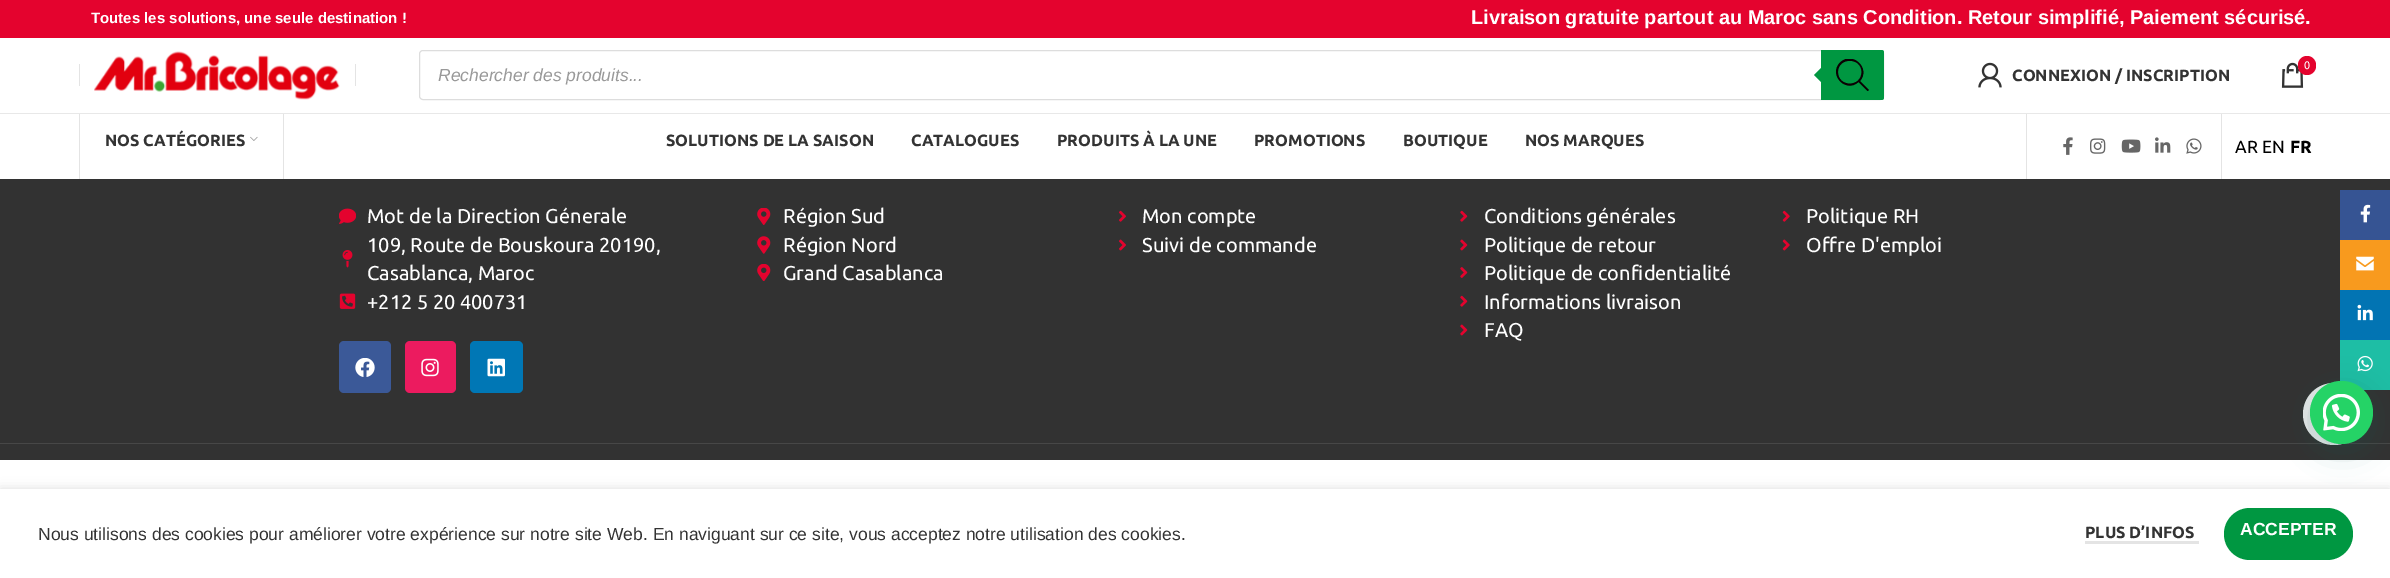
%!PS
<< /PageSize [2390 578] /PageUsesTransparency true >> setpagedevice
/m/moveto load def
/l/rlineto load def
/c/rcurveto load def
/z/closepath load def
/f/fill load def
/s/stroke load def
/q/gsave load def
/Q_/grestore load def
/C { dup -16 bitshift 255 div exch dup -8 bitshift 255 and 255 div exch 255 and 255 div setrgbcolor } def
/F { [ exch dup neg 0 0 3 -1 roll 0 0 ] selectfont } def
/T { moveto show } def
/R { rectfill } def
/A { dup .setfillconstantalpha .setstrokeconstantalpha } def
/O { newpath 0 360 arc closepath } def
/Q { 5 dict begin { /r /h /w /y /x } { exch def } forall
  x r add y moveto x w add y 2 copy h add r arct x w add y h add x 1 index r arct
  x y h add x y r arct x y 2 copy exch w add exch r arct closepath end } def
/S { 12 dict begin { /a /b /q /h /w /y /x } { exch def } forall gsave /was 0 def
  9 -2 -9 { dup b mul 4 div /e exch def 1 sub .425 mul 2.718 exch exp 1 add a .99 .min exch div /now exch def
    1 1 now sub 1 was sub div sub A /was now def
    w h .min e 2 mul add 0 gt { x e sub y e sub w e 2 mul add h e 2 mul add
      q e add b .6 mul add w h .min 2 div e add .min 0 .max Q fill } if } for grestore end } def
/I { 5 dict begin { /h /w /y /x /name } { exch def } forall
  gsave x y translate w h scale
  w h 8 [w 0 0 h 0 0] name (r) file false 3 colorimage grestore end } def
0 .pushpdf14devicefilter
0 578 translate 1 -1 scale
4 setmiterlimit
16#323232 C
0 0 2390 578 R
16#E4032E C
0 0 2390 38 R
/LiberationSans-Bold 15 F
16#FFFFFF C
(Toutes les solutions, une seule destination !) 91 23 T
/LiberationSans-Bold 20 F
(Livraison gratuite partout au Maroc sans Condition. Retour simplifié, Paiement sécurisé.) 1471 24 T
0 38 2390 75 R
16#E8E8E8 C
0 113 2390 1 R
16#E4E4E4 C
79 64 1 22 R
(1.rgb) 94 51 246 49 I
355 64 1 22 R
16#DDDDDD C
419.5 50.5 1464 49 3.5 Q s
/LiberationSans-Italic 17.5 F
16#999999 C
(Rechercher des produits...) 438 81 T
16#009741 C
1821 50 m 60.5 0 l 1.5 0 2.5 1 2.5 2.5 c 0 45 l 0 1.5 -1 2.5 -2.5 2.5 c -60.5 0 l z f
1824 65 m 0 20 l -10 -10 l z f
q
1836 59 33 32 rectclip
16#0A0002 C
1869 90 m -9 -9 l 11 -12.5 -7.5 -30.5 -20 -18.5 c -12 12.5 6 31 18.5 19.5 c 9 9 l z 1838 72 m 0 -15 23.5 -15 23.5 0 c 0 15.5 -23.5 15.5 -23.5 0 c z f
Q_
(2.rgb) 2281 62 23 26 I
16#E4032E C
2298 56 18 19 9 Q f
/Ubuntu-Regular 11 F
16#FFFFFF C
(0) 2304 69 T
(3.rgb) 1978 62 24 26 I
/Ubuntu-Bold 16.25 F
16#333333 C
(CONNEXION / INSCRIPTION) 2012 81 T
16#FFFFFF C
0 114 2390 65 R
16#E4E4E4 C
79 114 1 65 R
16#333333 C
(NOS CATÉGORIES) 105 146 T
(4.rgb) 250 136 8 5 I
16#E4E4E4 C
283 114 1 65 R
16#333333 C
(SOLUTIONS DE LA SAISON) 666 146 T
(CATALOGUES) 911 146 T
(PRODUITS À LA UNE) 1057 146 T
(PROMOTIONS) 1254 146 T
(BOUTIQUE) 1403 146 T
(NOS MARQUES) 1525 146 T
16#E4E4E4 C
2026 114 1 65 R
(5.rgb) 2063 137 10 18 I
(6.rgb) 2090 138 16 16 I
(7.rgb) 2121 139 20 14 I
(8.rgb) 2155 137 16 16 I
(9.rgb) 2186 138 16 16 I
2221 114 1 65 R
/Ubuntu-Regular 17.5 F
16#000000 C
(AR) 2235 153 T
(EN) 2262 153 T
/Ubuntu-Bold 17.5 F
(FR) 2290 153 T
16#474747 C
0 443 2390 1 R
(10.rgb) 339 208 17 16 I
/Ubuntu-Regular 20 F
16#FFFFFF C
(Mot de la Direction Génerale) 367 223 T
(11.rgb) 342 250 11 18 I
(109, Route de Bouskoura 20190,) 367 252 T
(Casablanca, Maroc) 367 280 T
(12.rgb) 339 293 17 16 I
(+212 5 20 400731) 367 309 T
16#3B5998 C
339 341 52 52 5 Q f
(13.rgb) 355 358 20 19 I
16#EC1B5F C
405 341 51 52 5 Q f
(14.rgb) 421 358 18 19 I
16#0077B5 C
470 341 53 52 5 Q f
(15.rgb) 487 358 18 19 I
(16.rgb) 757 208 14 17 I
16#FFFFFF C
(Région Sud) 783 223 T
(17.rgb) 757 236 14 18 I
(Région Nord) 783 252 T
(18.rgb) 757 264 14 17 I
(Grand Casablanca) 783 280 T
(19.rgb) 1119 210 7 12 I
(Mon compte) 1142 223 T
(20.rgb) 1119 239 7 12 I
(Suivi de commande) 1142 252 T
(21.rgb) 1460 210 8 12 I
(Conditions générales) 1484 223 T
(22.rgb) 1460 239 8 12 I
(Politique de retour) 1484 252 T
(23.rgb) 1460 267 8 11 I
(Politique de confidentialité) 1484 280 T
(21.rgb) 1460 295 8 12 I
(Informations livraison) 1484 309 T
(22.rgb) 1460 324 8 12 I
(FAQ) 1484 337 T
(24.rgb) 1782 210 8 12 I
(Politique RH) 1806 223 T
(25.rgb) 1782 239 8 12 I
(Offre D'emploi) 1806 252 T
16#365493 C
2340 190 50 50 R
(26.rgb) 2360 204 11 19 I
16#F89A1E C
2340 240 50 50 R
(27.rgb) 2356 256 18 15 I
16#0274B3 C
2340 290 50 50 R
(28.rgb) 2357 304 16 17 I
0.9 A
16#FFFFFF C
2334 414 31 O f
1 A
16#1EBEA5 C
2340 340 50 50 R
(29.rgb) 2357 355 16 17 I
16#FFFFFF C
0 460 2390 29 R
16#000000 C
0 489 2390 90 0 5.5 .14 S
16#FFFFFF C
0 489 2390 89 R
16#075E54 C
2311 389 63 62 31 15 .24 S
16#25D366 C
2341.5 412.5 31.5 O f
(30.rgb) 2323 394 37 37 I
/LiberationSans-Regular 17.5 F
16#333333 C
(Nous utilisons des cookies pour améliorer votre expérience sur notre site Web. En naviguant sur ce site, vous acceptez notre utilisation des cookies.) 38 540 T
/Ubuntu-Bold 16.25 F
(PLUS D’INFOS) 2085 538 T
16#E4E4E4 C
2085 541 114 3 R
16#009741 C
2224 508 129 52 26 Q f
/LiberationSans-Bold 17.5 F
16#FFFFFF C
(ACCEPTER) 2240 535 T
.poppdf14devicefilter showpage
